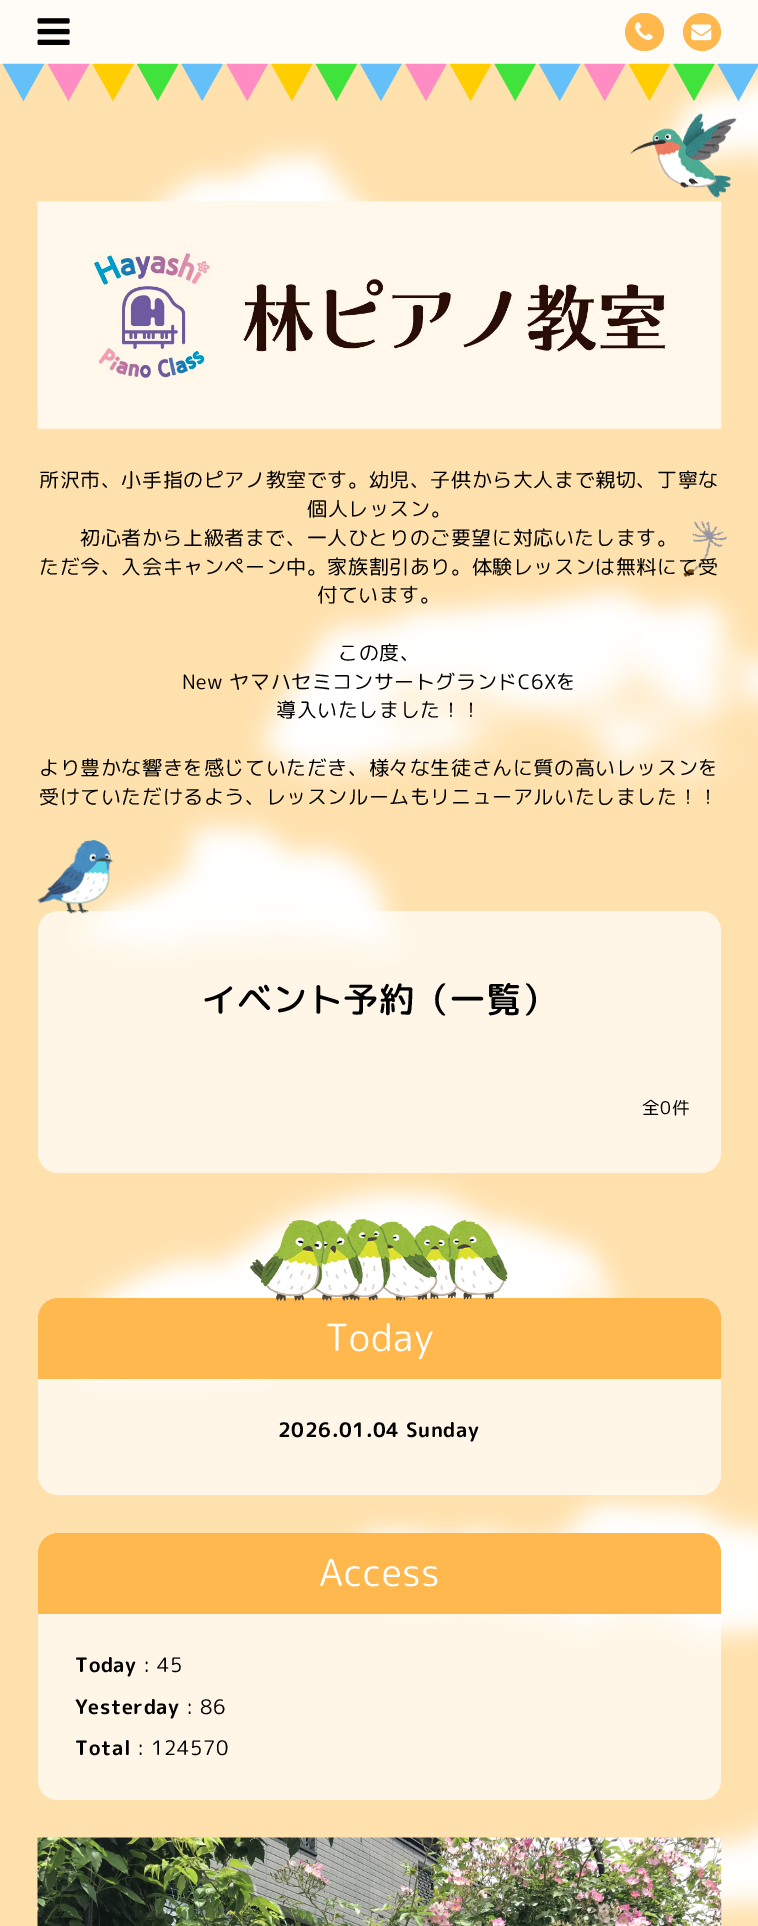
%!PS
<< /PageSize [758 1926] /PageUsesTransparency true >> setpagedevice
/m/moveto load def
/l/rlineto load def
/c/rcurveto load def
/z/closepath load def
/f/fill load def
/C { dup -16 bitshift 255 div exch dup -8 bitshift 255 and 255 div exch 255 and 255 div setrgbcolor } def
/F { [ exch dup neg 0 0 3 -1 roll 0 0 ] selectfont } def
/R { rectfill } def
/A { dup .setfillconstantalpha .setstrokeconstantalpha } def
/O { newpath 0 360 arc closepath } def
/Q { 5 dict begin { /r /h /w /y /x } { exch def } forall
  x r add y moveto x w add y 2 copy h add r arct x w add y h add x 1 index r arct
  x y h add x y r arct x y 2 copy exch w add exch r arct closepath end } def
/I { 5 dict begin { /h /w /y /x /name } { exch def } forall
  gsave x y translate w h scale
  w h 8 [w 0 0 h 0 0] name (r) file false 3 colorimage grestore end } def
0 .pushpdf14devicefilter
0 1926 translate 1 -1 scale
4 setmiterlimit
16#FFE1AD C
0 0 758 1926 R
(1.rgb) 63 63 695 1863 I
(2.rgb) 683 521 44 56 I
0.9 A
16#FFFFFF C
0 0 758 64 R
1 A
(3.rgb) 37 18 33 27 I
16#FFB84E C
625 13 39 38 19 Q f
(4.rgb) 635 22 18 18 I
702 32 19 O f
(5.rgb) 691 24 21 17 I
(6.rgb) 2 63 756 39 I
(7.rgb) 630 113 107 85 I
(8.rgb) 37 201 685 228 I
/RoundedMplus1c-Regular 20 F
16#000000 C
39 487 m .6 0 (所沢市、小手指のピアノ教室です。幼児、子供から大人まで親切、丁寧な) ashow
307 516 m .6 0 (個人レッスン。) ashow
80 545 m .6 0 (初心者から上級者まで、一人ひとりのご要望に対応いたします。) ashow
39 574 m .6 0 (ただ今、入会キャンペーン中。家族割引あり。体験レッスンは無料にて受) ashow
317 602 m .6 0 (付ています。) ashow
338 660 m .6 0 (この度、) ashow
182 689 m .6 0 (New ヤマハセミコンサートグランドC6Xを) ashow
276 717 m .6 0 (導入いたしました！！) ashow
39 775 m .6 0 (より豊かな響きを感じていただき、様々な生徒さんに質の高いレッスンを) ashow
39 804 m .6 0 (受けていただけるよう、レッスンルームもリニューアルいたしました！！) ashow
0.7 A
16#FFFFFF C
38 911 683 262 20 Q f
1 A
(9.rgb) 37 840 76 74 I
/RoundedMplus1c-Medium 35 F
16#000000 C
201 1012 m .6 0 (イベント予約（一覧）) ashow
/RoundedMplus1c-Regular 17.5 F
642 1114 m .6 0 (全0件) ashow
0.7 A
16#FFFFFF C
38 1298 683 197 20 Q f
1 A
16#FFB84E C
58 1298 m 643 0 l 11 0 20 9 20 20 c 0 61 l -683 0 l 0 -61 l 0 -11 9 -20 20 -20 c z f
(10.rgb) 250 1218 258 84 I
/RoundedMplus1c-Regular 37.5 F
16#FFFFFF C
325 1351 m .6 0 (Today) ashow
/RoundedMplus1cBold-Bold 20 F
16#000000 C
278 1437 m .6 0 (2026.01.04 Sunday) ashow
0.7 A
16#FFFFFF C
38 1533 683 267 20 Q f
1 A
16#FFB84E C
58 1533 m 643 0 l 11 0 20 9 20 20 c 0 61 l -683 0 l 0 -61 l 0 -11 9 -20 20 -20 c z f
/RoundedMplus1c-Regular 37.5 F
16#FFFFFF C
319 1586 m .6 0 (Access) ashow
/RoundedMplus1cBold-Bold 20 F
16#000000 C
75 1672 m .6 0 (Today) ashow
/RoundedMplus1c-Regular 20 F
143 1672 m .6 0 (: 45) ashow
/RoundedMplus1cBold-Bold 20 F
75 1714 m .6 0 (Yesterday) ashow
/RoundedMplus1c-Regular 20 F
186 1714 m .6 0 (: 86) ashow
/RoundedMplus1cBold-Bold 20 F
75 1755 m .6 0 (Total) ashow
/RoundedMplus1c-Regular 20 F
137 1755 m .6 0 (: 124570) ashow
(11.rgb) 37 1837 685 89 I
.poppdf14devicefilter showpage
